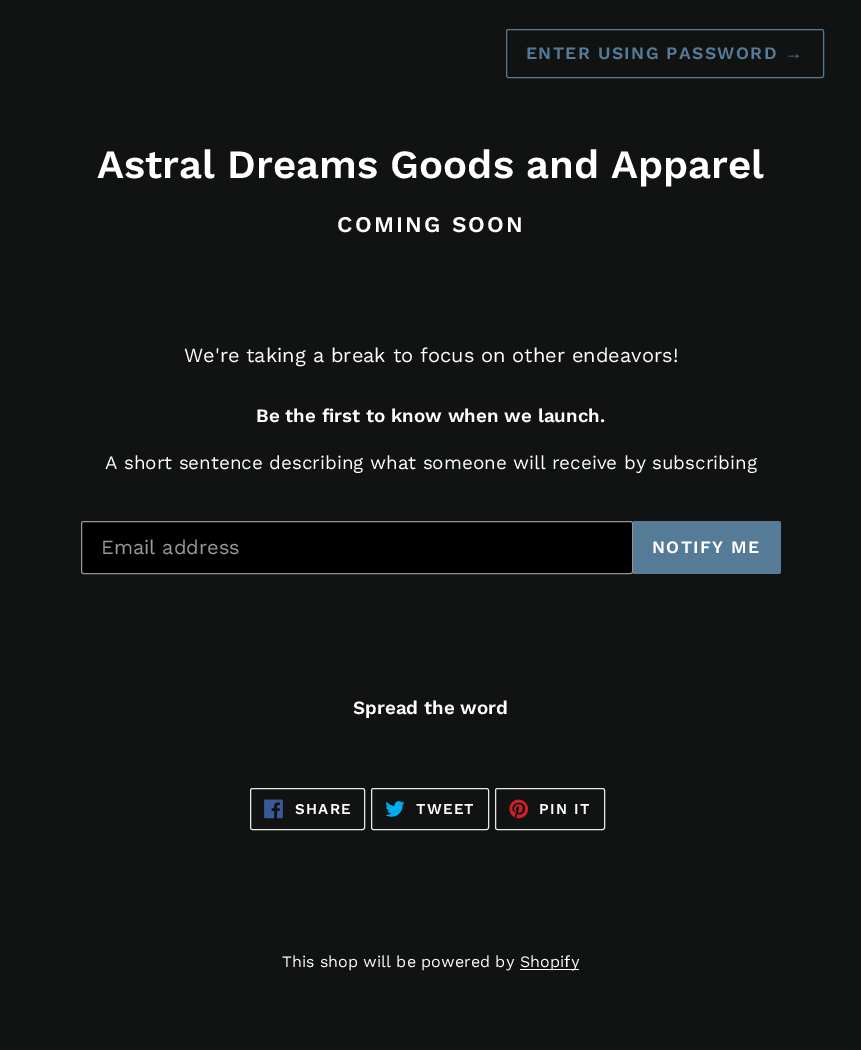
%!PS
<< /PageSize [861 1050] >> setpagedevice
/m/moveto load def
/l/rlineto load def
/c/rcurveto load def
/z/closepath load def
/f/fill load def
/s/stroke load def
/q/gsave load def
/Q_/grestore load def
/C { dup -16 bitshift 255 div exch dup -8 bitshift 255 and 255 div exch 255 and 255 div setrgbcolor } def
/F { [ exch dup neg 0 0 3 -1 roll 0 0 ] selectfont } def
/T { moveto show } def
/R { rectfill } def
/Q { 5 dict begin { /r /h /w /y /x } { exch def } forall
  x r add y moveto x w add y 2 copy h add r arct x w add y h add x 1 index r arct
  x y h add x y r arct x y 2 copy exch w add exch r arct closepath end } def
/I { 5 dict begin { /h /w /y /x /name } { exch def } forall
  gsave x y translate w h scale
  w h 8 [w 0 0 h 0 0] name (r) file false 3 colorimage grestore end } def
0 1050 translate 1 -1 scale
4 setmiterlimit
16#111212 C
0 0 861 1050 R
16#557B97 C
506.5 29.5 317 48 2 Q s
/WorkSans-SemiBold 17.5 F
526 59 m 1.4 0 (ENTER USING PASSWORD) ashow
/LiberationSans-Bold 17.5 F
785 59 m 1.4 0 (→) ashow
/WorkSans-SemiBold 40 F
16#FFFFFF C
(Astral Dreams Goods and Apparel) 97 178 T
/WorkSans-SemiBold 22.5 F
337 232 m 2.25 0 (COMING SOON) ashow
/WorkSans-Regular 20 F
(We're taking a break to focus on other endeavors!) 184 362 T
/WorkSans-SemiBold 18.75 F
(Be the first to know when we launch.) 256 422 T
/WorkSans-Regular 18.75 F
(A short sentence describing what someone will receive by subscribing) 105 469 T
16#000000 C
81.5 521.5 551 52 2 Q q f Q_
16#949494 C
s
/WorkSans-Regular 20 F
16#999999 C
(Email address) 101 554 T
16#557B97 C
633 521 m 145.5 0 l 1.5 0 2.5 1 2.5 2.5 c 0 48 l 0 1.5 -1 2.5 -2.5 2.5 c -145.5 0 l z f
/WorkSans-SemiBold 17.5 F
16#FFFFFF C
652 553 m 1.4 0 (NOTIFY ME) ashow
/WorkSans-SemiBold 18.75 F
(Spread the word) 353 714 T
16#E8E9EB C
250.5 788.5 114 41 2 Q s
(1.rgb) 264 799 19 20 I
/WorkSans-SemiBold 15 F
16#FFFFFF C
295 814 m 1.25 0 (SHARE) ashow
16#E8E9EB C
371.5 788.5 117 41 2 Q s
(2.rgb) 385 801 20 16 I
16#FFFFFF C
416 814 m 1.25 0 (TWEET) ashow
16#E8E9EB C
495.5 788.5 109 41 2 Q s
(3.rgb) 509 799 20 20 I
16#FFFFFF C
539 814 m 1.25 0 (PIN IT) ashow
/WorkSans-Regular 16 F
(This shop will be powered by) 282 967 T
520 969 59 1 R
(Shopify) 520 967 T
showpage
